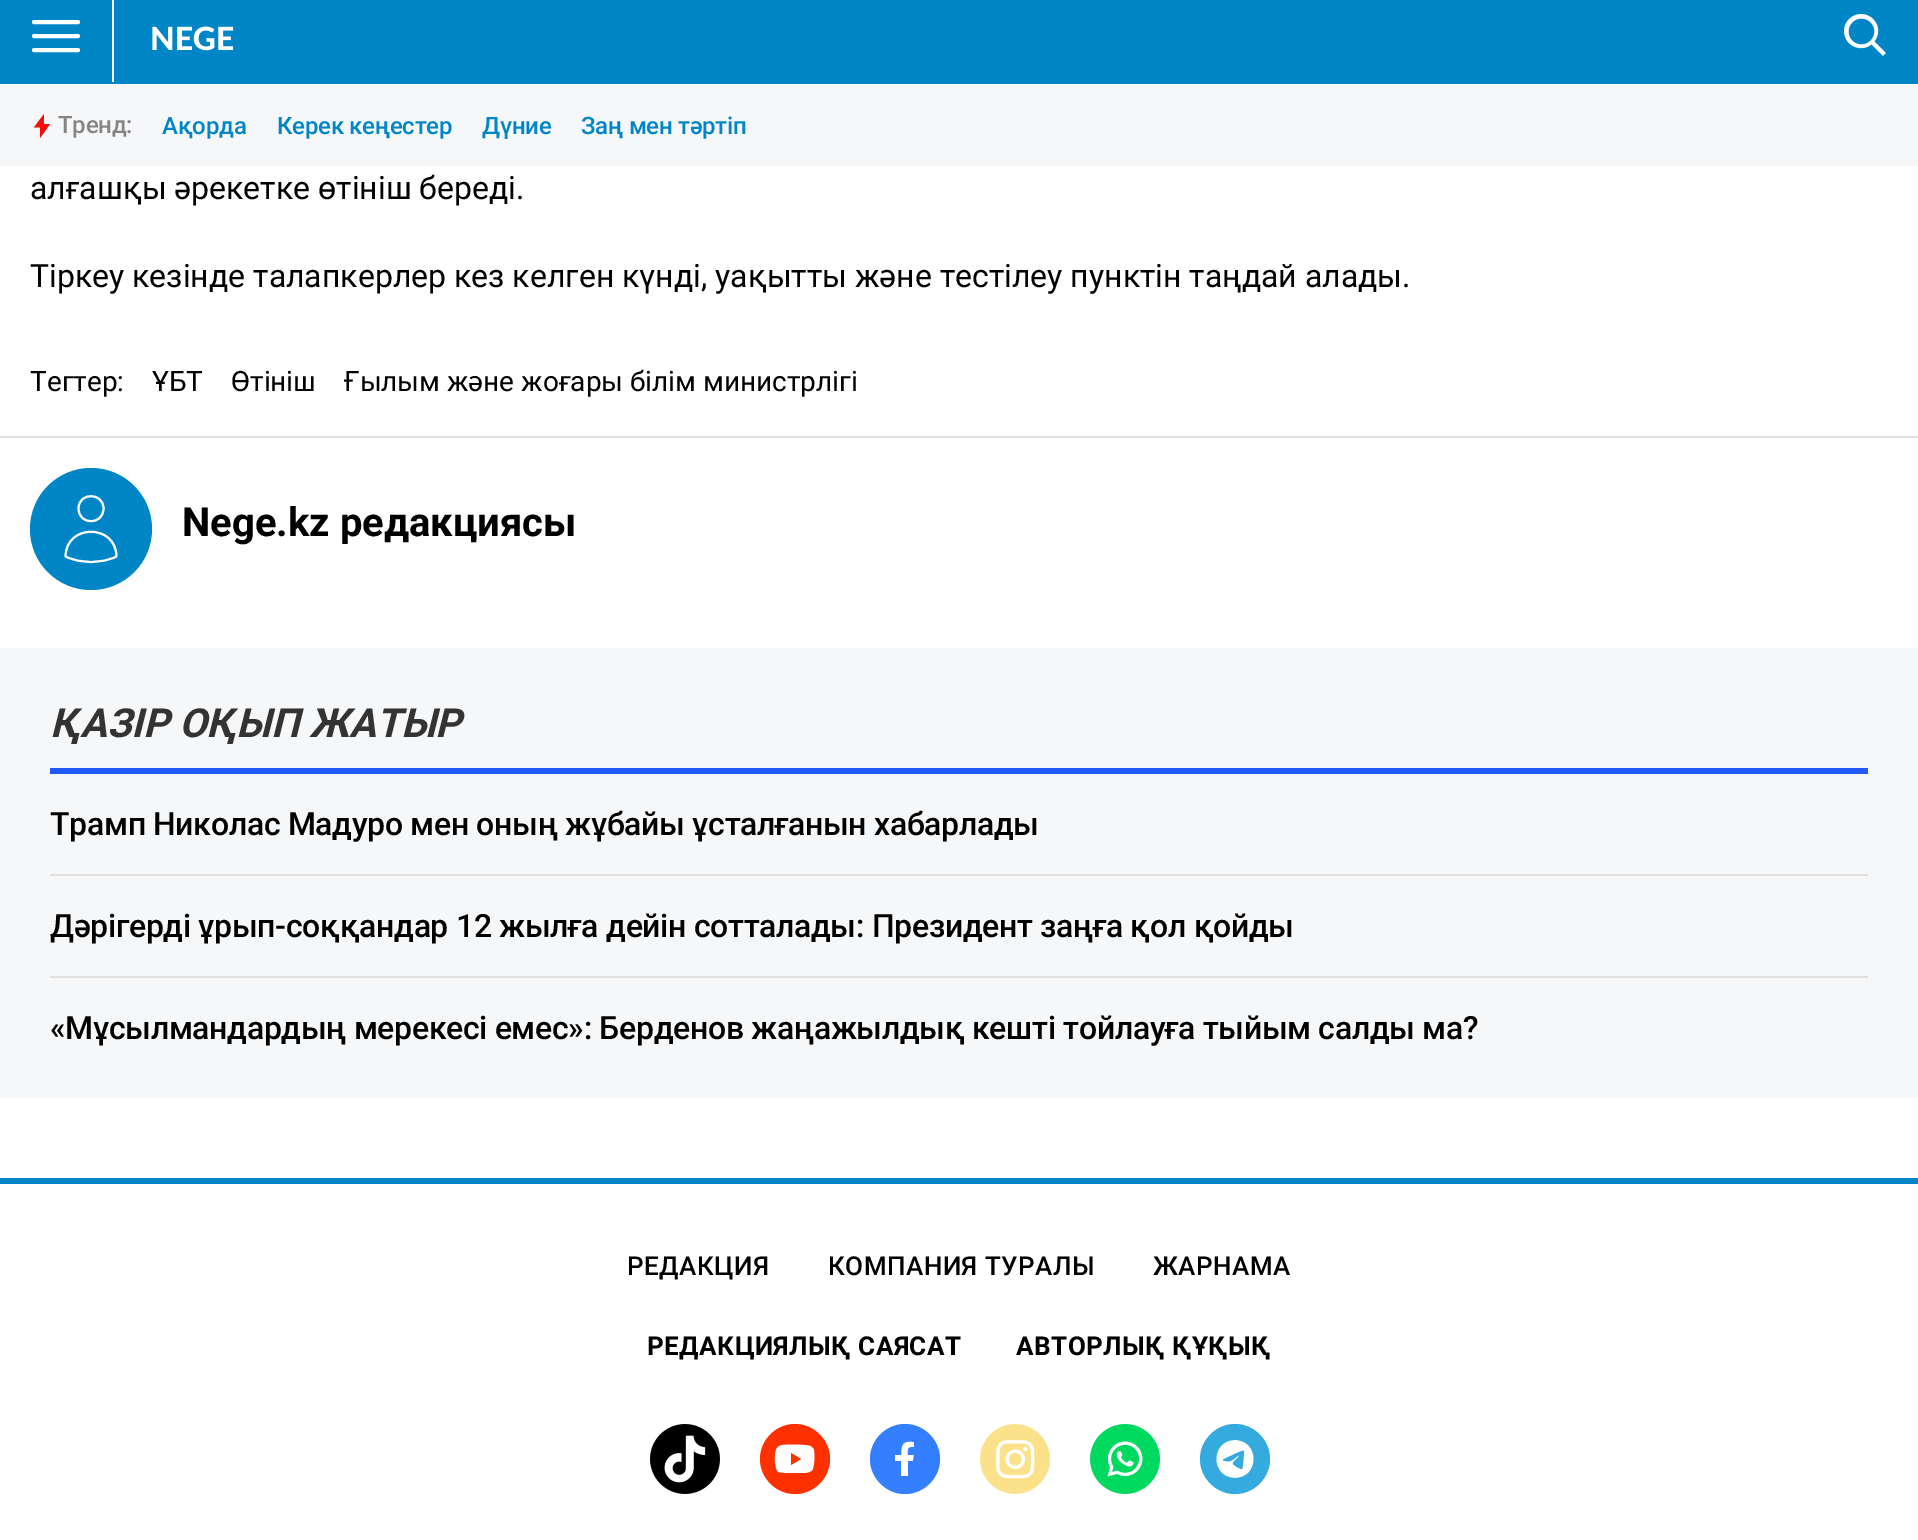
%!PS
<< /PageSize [1918 1540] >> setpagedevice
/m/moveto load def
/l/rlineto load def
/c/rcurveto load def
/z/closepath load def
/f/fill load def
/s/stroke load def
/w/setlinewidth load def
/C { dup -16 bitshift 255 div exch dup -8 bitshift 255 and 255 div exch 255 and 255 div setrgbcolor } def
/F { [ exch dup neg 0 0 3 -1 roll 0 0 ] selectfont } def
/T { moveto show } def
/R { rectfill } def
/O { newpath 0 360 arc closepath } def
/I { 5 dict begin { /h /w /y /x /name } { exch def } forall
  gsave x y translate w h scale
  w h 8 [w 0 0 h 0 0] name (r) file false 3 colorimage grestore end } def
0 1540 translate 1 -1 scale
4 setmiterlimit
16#FFFFFF C
0 0 1918 1540 R
16#0086C7 C
0 0 1918 84 R
16#FFFFFF C
4 w
1 setlinecap
34 22 m 44 0 l 34 36 m 44 0 l 34 50 m 44 0 l s
112 0 2 82 R
(1.rgb) 152 26 82 25 I
(2.rgb) 1844 14 42 42 I
16#F5F7F9 C
0 84 1918 82 R
16#FA0A0A C
44 114 m -10 13.5 l 6 0 l 0 10.5 l 10 -14 l -6 0 l z f
/Roboto-Medium 24 F
16#898484 C
58 133 m -.25 0 (Тренд:) ashow
16#0086C7 C
162 134 m -.25 0 (Ақорда) ashow
277 134 m -.25 0 (Керек кеңестер) ashow
482 134 m -.25 0 (Дүние) ashow
581 134 m -.25 0 (Заң мен тәртіп) ashow
/Roboto-Regular 32 F
16#000000 C
(алғашқы әрекетке өтініш береді.) 30 199 T
(Тіркеу кезінде талапкерлер кез келген күнді, уақытты және тестілеу пунктін таңдай алады.) 30 287 T
16#E0E0E0 C
0 436 1918 2 R
/Roboto-Regular 28 F
16#000000 C
(Тегтер:) 30 391 T
(ҰБТ) 152 391 T
(Өтініш) 231 391 T
(Ғылым және жоғары білім министрлігі) 344 391 T
16#0086C7 C
91 529 61 O f
16#FFFFFF C
2 w
1 setlinejoin
103.5 508.5 m 0 17 -25 17 -25 0 c 0 -16.5 25 -16.5 25 0 c z 65.5 556.5 m .5 -33 50.5 -33 51 0 c -16 7.5 -35 7.5 -51 0 c z s
/Roboto-Bold 40 F
16#000000 C
(Nege.kz редакциясы) 182 536 T
16#F6F7F9 C
0 648 1918 450 R
16#2059F6 C
50 768 1818 6 R
/Roboto-BoldItalic 40 F
16#333333 C
(ҚАЗІР ОҚЫП ЖАТЫР) 50 737 T
16#E0E0E0 C
50 874 1818 2 R
/Roboto-Medium 32 F
16#000000 C
50 835 m -.32 0 (Трамп Николас Мадуро мен оның жұбайы ұсталғанын хабарлады) ashow
16#E0E0E0 C
50 976 1818 2 R
16#000000 C
50 937 m -.32 0 (Дәрігерді ұрып-соққандар 12 жылға дейін сотталады: Президент заңға қол қойды) ashow
50 1039 m -.32 0 («Мұсылмандардың мерекесі емес»: Берденов жаңажылдық кешті тойлауға тыйым салды ма?) ashow
16#0086C7 C
0 1178 1918 6 R
/Roboto-Medium 26 F
16#000000 C
627 1275 m .5 0 (РЕДАКЦИЯ) ashow
828 1275 m .5 0 (КОМПАНИЯ ТУРАЛЫ) ashow
1153 1275 m .5 0 (ЖАРНАМА) ashow
/Roboto-Bold 26 F
647 1355 m .5 0 (РЕДАКЦИЯЛЫҚ САЯСАТ) ashow
1016 1355 m .5 0 (АВТОРЛЫҚ ҚҰҚЫҚ) ashow
(3.rgb) 650 1424 70 70 I
16#FF3000 C
795 1424 m -19 0 -35 16 -35 35 c 0 19 16 35 35 35 c 19 0 35 -16 35 -35 c 0 -19 -16 -35 -35 -35 c z 814 1449 m 1 4 1 19 -2 22 c -2 1 -4 2 -6 2 c -4 0 -25 1 -28 -1 c -4 -2 -4 -19 -2 -23 c 1 -2 2 -3 5 -4 c 4 -1 27 -1 30 1 c z 791 1465 m 0 -12 l 10 6 l z eofill
16#337FFF C
905 1424 m -19 0 -35 16 -35 35 c 0 19 16 35 35 35 c 19 0 35 -16 35 -35 c 0 -19 -16 -35 -35 -35 c z 914 1455 m -6 0 l 0 -6 -1 -8 6 -8 c 0 -5 l -11 -2 -13 2 -13 13 c -6 0 l 0 6 l 6 0 l 0 15 l 7 0 l 0 -15 l 5 0 l z eofill
(4.rgb) 980 1424 70 70 I
(5.rgb) 1090 1424 70 70 I
16#34AADF C
1235 1424 m -19 0 -35 16 -35 35 c 0 19 16 35 35 35 c 19 0 35 -16 35 -35 c 0 -19 -16 -35 -35 -35 c z 1224 1459 m -1 0 -1 1 -1 1 c 1 1 1 1 3 1 c 4 2 9 -3 13 -6 c 1 2 -6 6 -6 8 c -1 1 5 5 6 5 c 1 1 2 1 3 1 c 1 -1 2 -17 2 -18 c -1 -1 -4 1 -5 1 c z 1235 1478 m -25 0 -25 -38 0 -38 c 25 0 25 38 0 38 c z eofill
showpage
